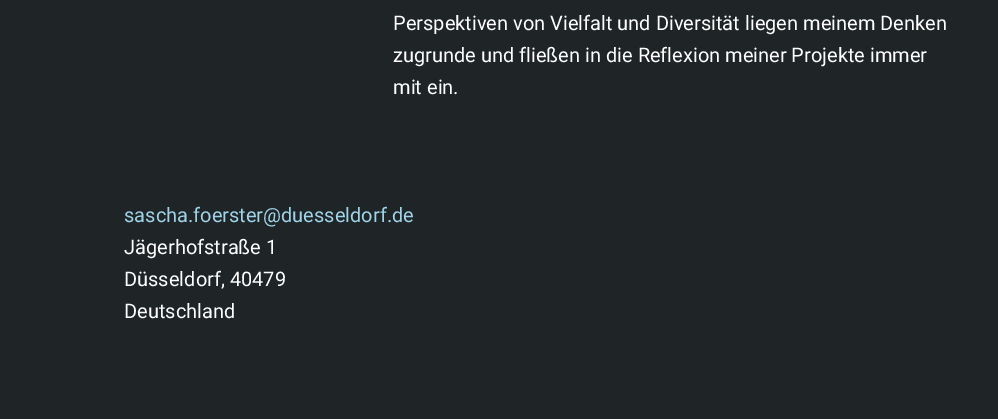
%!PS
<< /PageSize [998 419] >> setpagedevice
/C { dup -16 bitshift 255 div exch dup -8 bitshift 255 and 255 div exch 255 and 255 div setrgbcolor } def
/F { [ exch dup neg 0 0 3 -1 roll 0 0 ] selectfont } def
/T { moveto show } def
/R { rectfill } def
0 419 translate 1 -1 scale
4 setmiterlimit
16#1F2527 C
0 0 998 419 R
/Roboto-Regular 20 F
16#FFFFFF C
(Perspektiven von Vielfalt und Diversität liegen meinem Denken) 393 30 T
(zugrunde und fließen in die Reflexion meiner Projekte immer) 393 62 T
(mit ein.) 393 94 T
16#9FD3E8 C
(sascha.foerster@duesseldorf.de) 124 222 T
16#FFFFFF C
(Jägerhofstraße 1) 124 254 T
(Düsseldorf, 40479) 124 286 T
(Deutschland) 124 318 T
showpage
